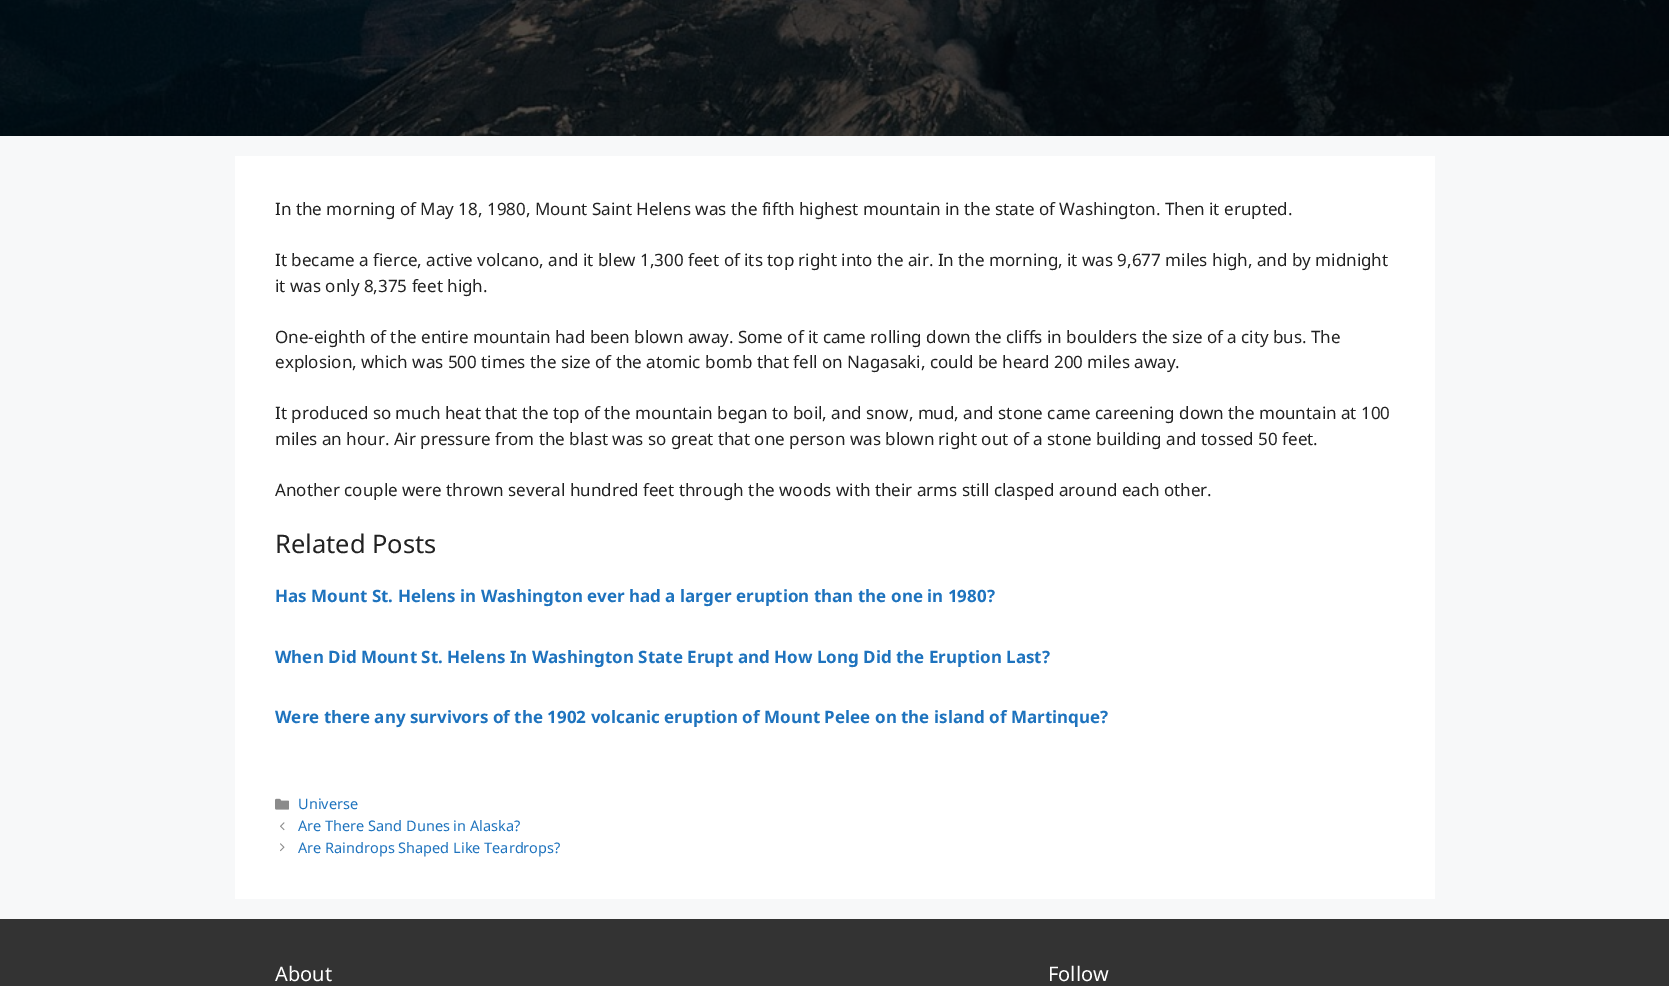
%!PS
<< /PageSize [1669 986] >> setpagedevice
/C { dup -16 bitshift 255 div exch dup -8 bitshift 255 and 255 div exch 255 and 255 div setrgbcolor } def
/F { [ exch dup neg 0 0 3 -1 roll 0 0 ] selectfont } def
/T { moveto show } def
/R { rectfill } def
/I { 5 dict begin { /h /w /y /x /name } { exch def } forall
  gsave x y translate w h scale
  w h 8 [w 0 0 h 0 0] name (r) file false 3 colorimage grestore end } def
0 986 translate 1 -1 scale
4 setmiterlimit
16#F7F8F9 C
0 0 1669 986 R
16#000000 C
0 0 1669 136 R
(1.rgb) 0 0 1669 136 I
16#FFFFFF C
235 156 1200 743 R
/NotoSans-Regular 17 F
16#222222 C
(In the morning of May 18, 1980, Mount Saint Helens was the fifth highest mountain in the state of Washington. Then it erupted.) 275 215 T
(It became a fierce, active volcano, and it blew 1,300 feet of its top right into the air. In the morning, it was 9,677 miles high, and by midnight) 275 266 T
(it was only 8,375 feet high.) 275 292 T
(One-eighth of the entire mountain had been blown away. Some of it came rolling down the cliffs in boulders the size of a city bus. The) 275 343 T
(explosion, which was 500 times the size of the atomic bomb that fell on Nagasaki, could be heard 200 miles away.) 275 368 T
(It produced so much heat that the top of the mountain began to boil, and snow, mud, and stone came careening down the mountain at 100) 275 419 T
(miles an hour. Air pressure from the blast was so great that one person was blown right out of a stone building and tossed 50 feet.) 275 445 T
(Another couple were thrown several hundred feet through the woods with their arms still clasped around each other.) 275 496 T
/NotoSans-Regular 25.5 F
(Related Posts) 275 553 T
/NotoSans-Bold 17 F
16#1E73BE C
(Has Mount St. Helens in Washington ever had a larger eruption than the one in 1980?) 275 602 T
(When Did Mount St. Helens In Washington State Erupt and How Long Did the Eruption Last?) 275 663 T
(Were there any survivors of the 1902 volcanic eruption of Mount Pelee on the island of Martinque?) 275 723 T
(2.rgb) 275 798 14 12 I
/NotoSans-Regular 14.5 F
(Universe) 298 809 T
(3.rgb) 280 822 5 9 I
(Are There Sand Dunes in Alaska?) 298 831 T
(4.rgb) 280 843 5 9 I
(Are Raindrops Shaped Like Teardrops?) 298 853 T
16#333333 C
0 919 1669 67 R
/NotoSans-Regular 20 F
16#FFFFFF C
(About) 275 981 T
(Follow) 1048 981 T
showpage
